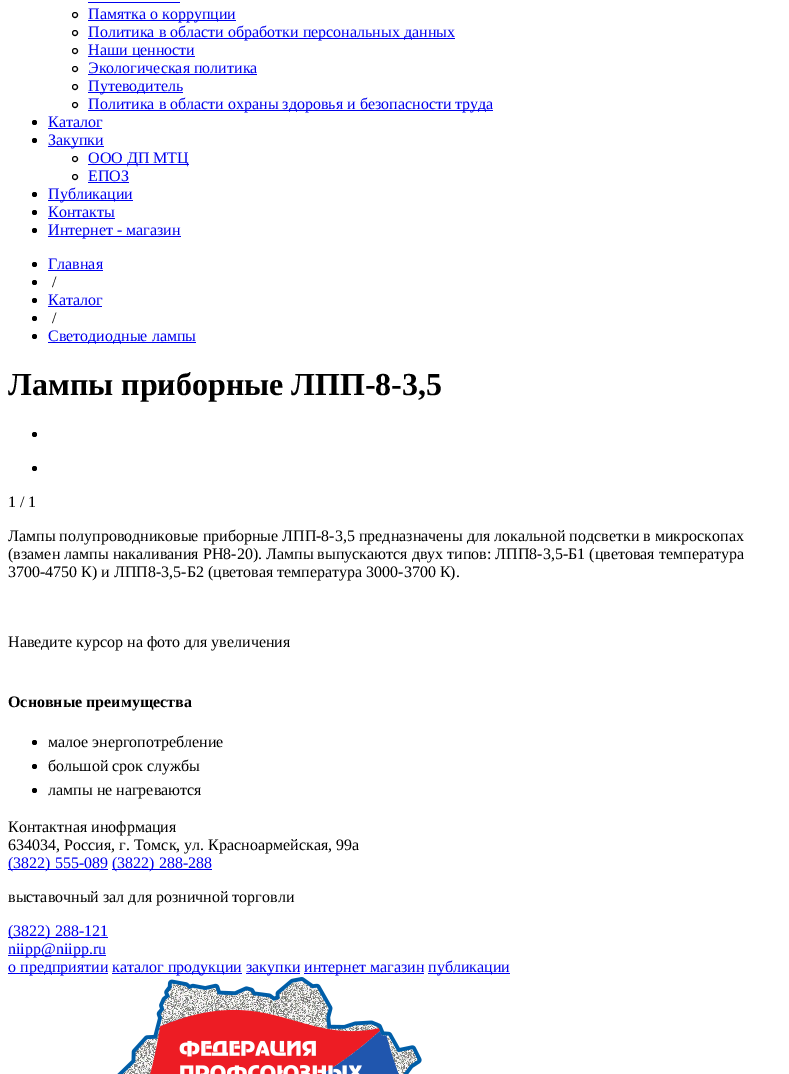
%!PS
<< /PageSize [789 1074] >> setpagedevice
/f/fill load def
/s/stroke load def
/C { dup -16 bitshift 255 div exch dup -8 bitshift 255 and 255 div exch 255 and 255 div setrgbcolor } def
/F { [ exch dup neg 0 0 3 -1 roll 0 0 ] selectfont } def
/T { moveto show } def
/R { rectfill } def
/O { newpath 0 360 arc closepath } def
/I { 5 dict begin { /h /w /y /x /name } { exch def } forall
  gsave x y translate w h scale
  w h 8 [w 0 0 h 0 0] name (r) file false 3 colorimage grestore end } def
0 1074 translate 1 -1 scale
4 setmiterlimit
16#FFFFFF C
0 0 789 1074 R
16#0000EE C
88 2 92 1 R
16#000000 C
75 15 2.5 O s
16#0000EE C
88 20 148 1 R
/LiberationSerif-Regular 16 F
(Памятка о коррупции) 88 19 T
16#000000 C
75 33 2.5 O s
16#0000EE C
88 38 367 1 R
(Политика в области обработки персональных данных) 88 37 T
16#000000 C
75 51 2.5 O s
16#0000EE C
88 56 107 1 R
(Наши ценности) 88 55 T
16#000000 C
75 69 2.5 O s
16#0000EE C
(Экологическая политика) 88 73 T
88 74 169 1 R
16#000000 C
75 87 2.5 O s
16#0000EE C
88 92 95 1 R
(Путеводитель) 88 91 T
16#000000 C
75 105 2.5 O s
16#0000EE C
88 110 405 1 R
(Политика в области охраны здоровья и безопасности труда) 88 109 T
16#000000 C
34.5 122.5 2.5 O f
16#0000EE C
(Каталог) 48 127 T
48 128 54 1 R
16#000000 C
34.5 140.5 2.5 O f
16#0000EE C
48 146 56 1 R
(Закупки) 48 145 T
16#000000 C
75 159 2.5 O s
16#0000EE C
88 164 101 1 R
(ООО ДП МТЦ) 88 163 T
16#000000 C
75 177 2.5 O s
16#0000EE C
(ЕПОЗ) 88 181 T
88 182 41 1 R
16#000000 C
34.5 194.5 2.5 O f
16#0000EE C
48 200 85 1 R
(Публикации) 48 199 T
16#000000 C
34.5 212.5 2.5 O f
16#0000EE C
(Контакты) 48 217 T
48 218 67 1 R
16#000000 C
34.5 230.5 2.5 O f
16#0000EE C
48 236 133 1 R
(Интернет - магазин) 48 235 T
16#000000 C
34.5 264.5 2.5 O f
16#0000EE C
(Главная) 48 269 T
48 270 55 1 R
16#000000 C
34.5 282.5 2.5 O f
(/) 52 287 T
34.5 300.5 2.5 O f
16#0000EE C
(Каталог) 48 305 T
48 306 54 1 R
16#000000 C
34.5 318.5 2.5 O f
(/) 52 323 T
34.5 336.5 2.5 O f
16#0000EE C
48 342 148 1 R
(Светодиодные лампы) 48 341 T
/LiberationSerif-Bold 32 F
16#000000 C
(Лампы приборные ЛПП-8-3,5) 8 395 T
34.5 434.5 2.5 O f
34.5 468.5 2.5 O f
/LiberationSerif-Regular 16 F
(1 / 1) 8 507 T
(Лампы полупроводниковые приборные ЛПП-8-3,5 предназначены для локальной подсветки в микроскопах) 8 541 T
(\(взамен лампы накаливания РН8-20\). Лампы выпускаются двух типов: ЛПП8-3,5-Б1 \(цветовая температура) 8 559 T
(3700-4750 К\) и ЛПП8-3,5-Б2 \(цветовая температура 3000-3700 К\).) 8 577 T
(Наведите курсор на фото для увеличения) 8 647 T
/LiberationSerif-Bold 16 F
(Основные преимущества) 8 707 T
34.5 742.5 2.5 O f
/LiberationSerif-Regular 16 F
(малое энергопотребление) 48 747 T
34.5 766.5 2.5 O f
(большой срок службы) 48 771 T
34.5 790.5 2.5 O f
(лампы не нагреваются) 48 795 T
(Контактная инофрмация) 8 832 T
(634034, Россия, г. Томск, ул. Красноармейская, 99а) 8 850 T
16#0000EE C
8 869 100 1 R
(\(3822\) 555-089) 8 868 T
112 869 100 1 R
(\(3822\) 288-288) 112 868 T
16#000000 C
(выставочный зал для розничной торговли) 8 902 T
16#0000EE C
8 937 100 1 R
(\(3822\) 288-121) 8 936 T
8 955 98 1 R
(niipp@niipp.ru) 8 954 T
8 973 100 1 R
(о предприятии) 8 972 T
112 973 130 1 R
(каталог продукции) 112 972 T
246 973 54 1 R
(закупки) 246 972 T
304 973 120 1 R
(интернет магазин) 304 972 T
428 973 82 1 R
(публикации) 428 972 T
(1.rgb) 117 977 305 97 I
showpage
